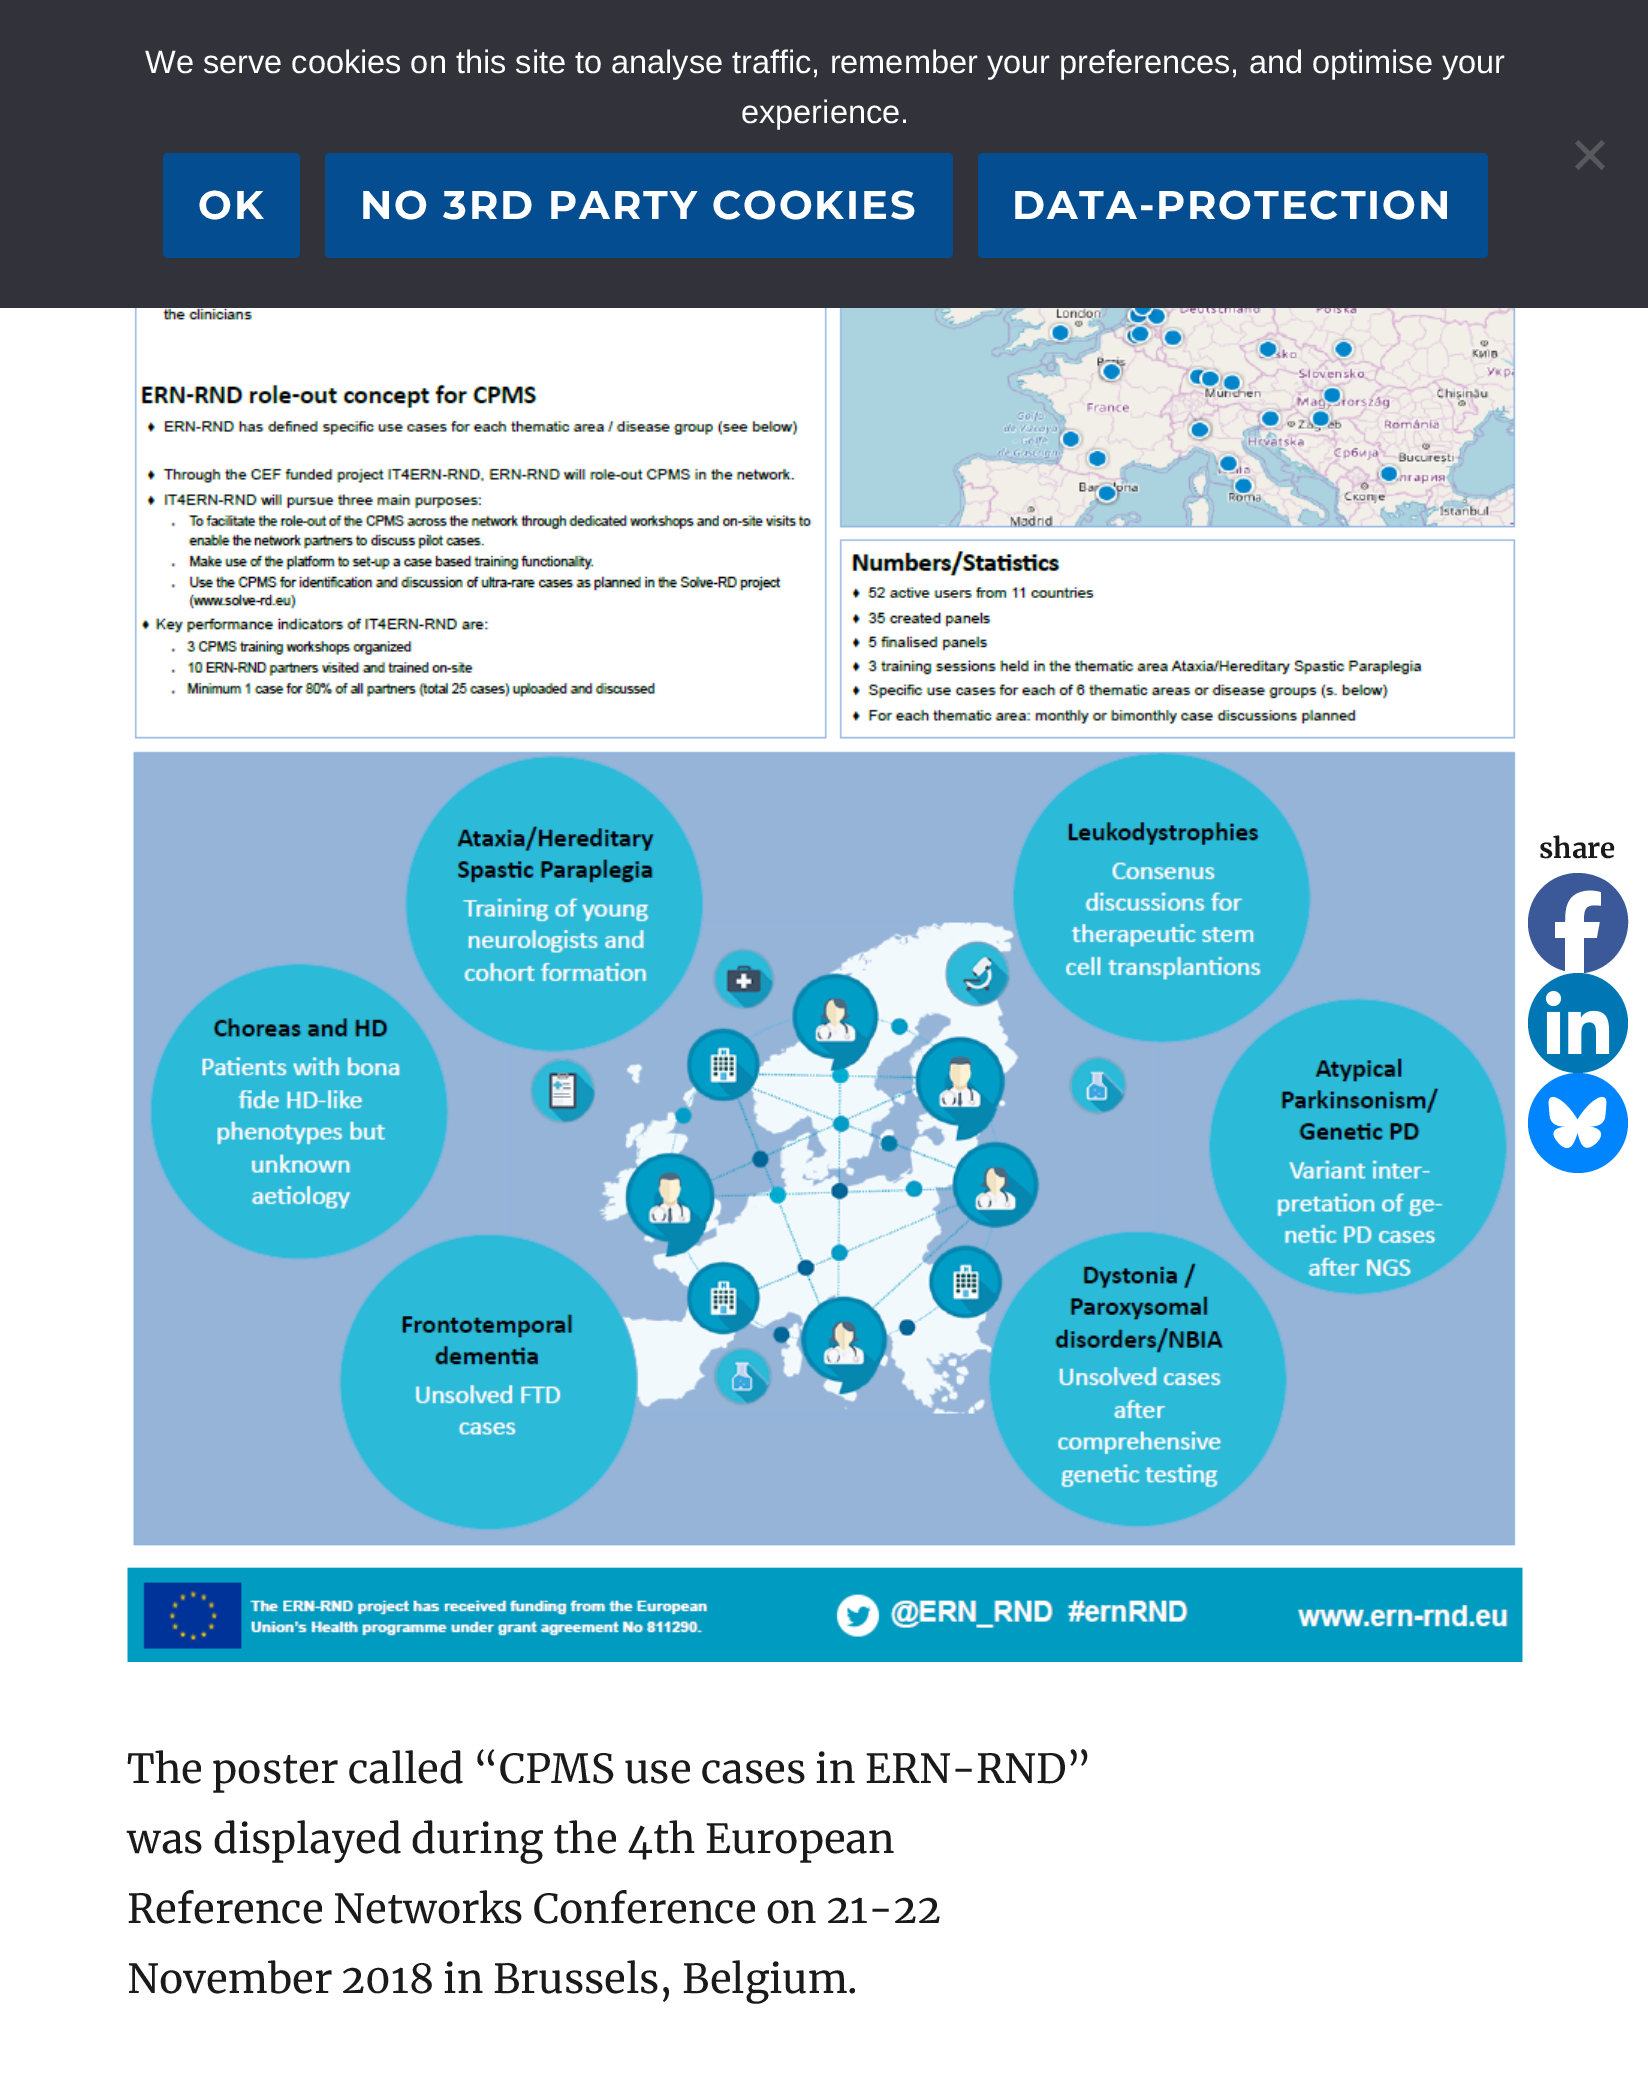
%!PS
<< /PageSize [1648 2095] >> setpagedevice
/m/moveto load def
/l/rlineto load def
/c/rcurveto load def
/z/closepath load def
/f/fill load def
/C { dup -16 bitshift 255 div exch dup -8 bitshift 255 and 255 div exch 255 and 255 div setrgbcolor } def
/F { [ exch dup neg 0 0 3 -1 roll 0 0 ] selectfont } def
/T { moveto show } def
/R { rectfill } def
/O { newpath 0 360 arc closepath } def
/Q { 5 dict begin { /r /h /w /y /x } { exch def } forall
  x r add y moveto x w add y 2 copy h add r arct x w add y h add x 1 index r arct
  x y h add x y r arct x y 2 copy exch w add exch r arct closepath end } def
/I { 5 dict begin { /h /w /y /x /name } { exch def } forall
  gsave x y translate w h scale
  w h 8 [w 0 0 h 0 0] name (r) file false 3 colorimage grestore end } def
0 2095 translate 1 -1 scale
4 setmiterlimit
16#FFFFFF C
0 0 1648 2095 R
16#32323A C
0 0 1648 308 R
/LiberationSans-Regular 32.5 F
16#FFFFFF C
(We serve cookies on this site to analyse traffic, remember your preferences, and optimise your) 145 73 T
(experience.) 741 123 T
16#59595D C
1601.5 140 m 3.5 3.5 l -26.5 26.5 l -3.5 -3.5 l z f
1575 143.5 m 3.5 -3.5 l 26.5 26.5 l -3.5 3.5 l z f
16#034D90 C
163 153 137 105 5 Q f
/Montserrat-Thin 40 F
16#FFFFFF C
198 219 m 1.9 0 (OK) ashow
16#034D90 C
325 153 628 105 5 Q f
16#FFFFFF C
360 219 m 1.9 0 (NO 3RD PARTY COOKIES) ashow
16#034D90 C
978 153 510 105 5 Q f
16#FFFFFF C
1012 219 m 1.9 0 (DATA-PROTECTION) ashow
(1.rgb) 127 308 1396 1354 I
/Merriweather-Bold 27.5 F
16#1A1A1A C
(share) 1539 858 T
16#3B5998 C
1578 873 m 10 0 20 3 28 8 c 39 26 23 86 -22 92 c 0 -35 l 13 0 l 3 -16 l -16 0 l 0 -14 2 -18 17 -16 c 0 -14 l -13 -4 -30 -1 -34 13 c -2 5 -2 12 -2 17 c -10 0 l 0 16 l 10 0 l 0 33 l -21 -5 -37 -25 -37 -48 c 0 -28 22 -50 50 -50 c z f
16#0077B5 C
1578 1023 50 O f
(2.rgb) 1545 991 65 63 I
16#0085FF C
1578 1123 50 O f
(3.rgb) 1548 1096 59 53 I
/Merriweather-Regular 40 F
16#1A1A1A C
(The poster called “CPMS use cases in ERN-RND”) 127 1783 T
(was displayed during the 4th European) 127 1853 T
(Reference Networks Conference on 21-22) 127 1923 T
(November 2018 in Brussels, Belgium.) 127 1993 T
showpage
